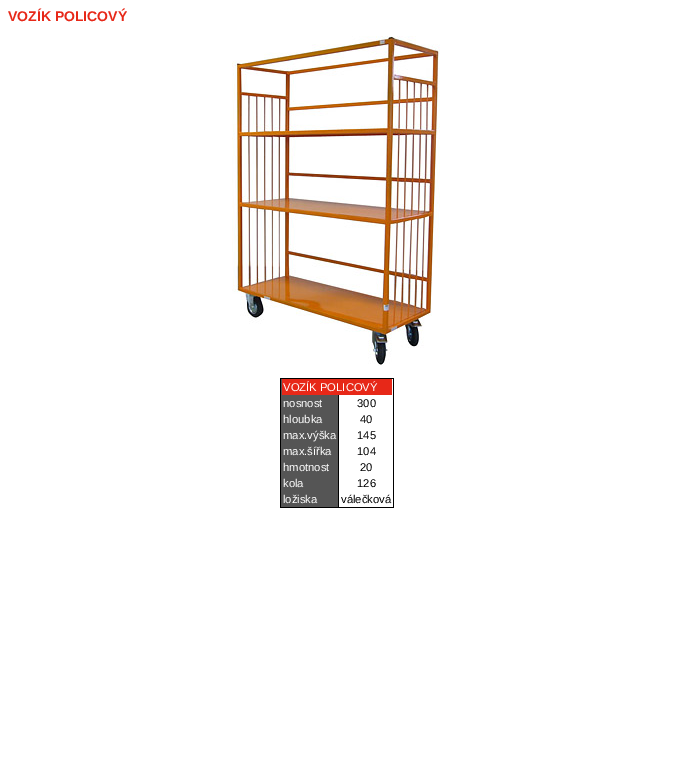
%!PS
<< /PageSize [674 779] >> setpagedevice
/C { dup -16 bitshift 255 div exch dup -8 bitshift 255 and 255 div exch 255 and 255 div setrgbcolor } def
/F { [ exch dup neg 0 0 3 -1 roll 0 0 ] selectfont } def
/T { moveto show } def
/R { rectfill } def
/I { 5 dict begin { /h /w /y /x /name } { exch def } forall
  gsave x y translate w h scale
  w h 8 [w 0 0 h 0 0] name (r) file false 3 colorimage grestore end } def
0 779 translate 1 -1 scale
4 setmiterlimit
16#FFFFFF C
0 0 674 779 R
/LiberationSans-Bold 14 F
16#E72818 C
(VOZÍK POLICOVÝ) 8 21 T
(1.rgb) 232 36 208 330 I
16#000000 C
280 378 114 1 R
280 507 114 1 R
16#555555 C
281 379 57 128 R
16#E72818 C
282 379 110 16 R
/LiberationSans-Regular 11.25 F
16#FFFFFF C
(VOZÍK POLICOVÝ) 283 391 T
(nosnost) 283 407 T
16#000000 C
(300) 357 407 T
16#FFFFFF C
(hloubka) 283 423 T
16#000000 C
(40) 360 423 T
16#FFFFFF C
(max.výška) 283 439 T
16#000000 C
(145) 357 439 T
16#FFFFFF C
(max.šířka) 283 455 T
16#000000 C
(104) 357 455 T
16#FFFFFF C
(hmotnost) 283 471 T
16#000000 C
(20) 360 471 T
16#FFFFFF C
(kola) 283 487 T
16#000000 C
(126) 357 487 T
280 378 1 130 R
16#FFFFFF C
(ložiska) 283 503 T
16#000000 C
393 378 1 130 R
338 395 1 113 R
(válečková) 341 503 T
showpage
